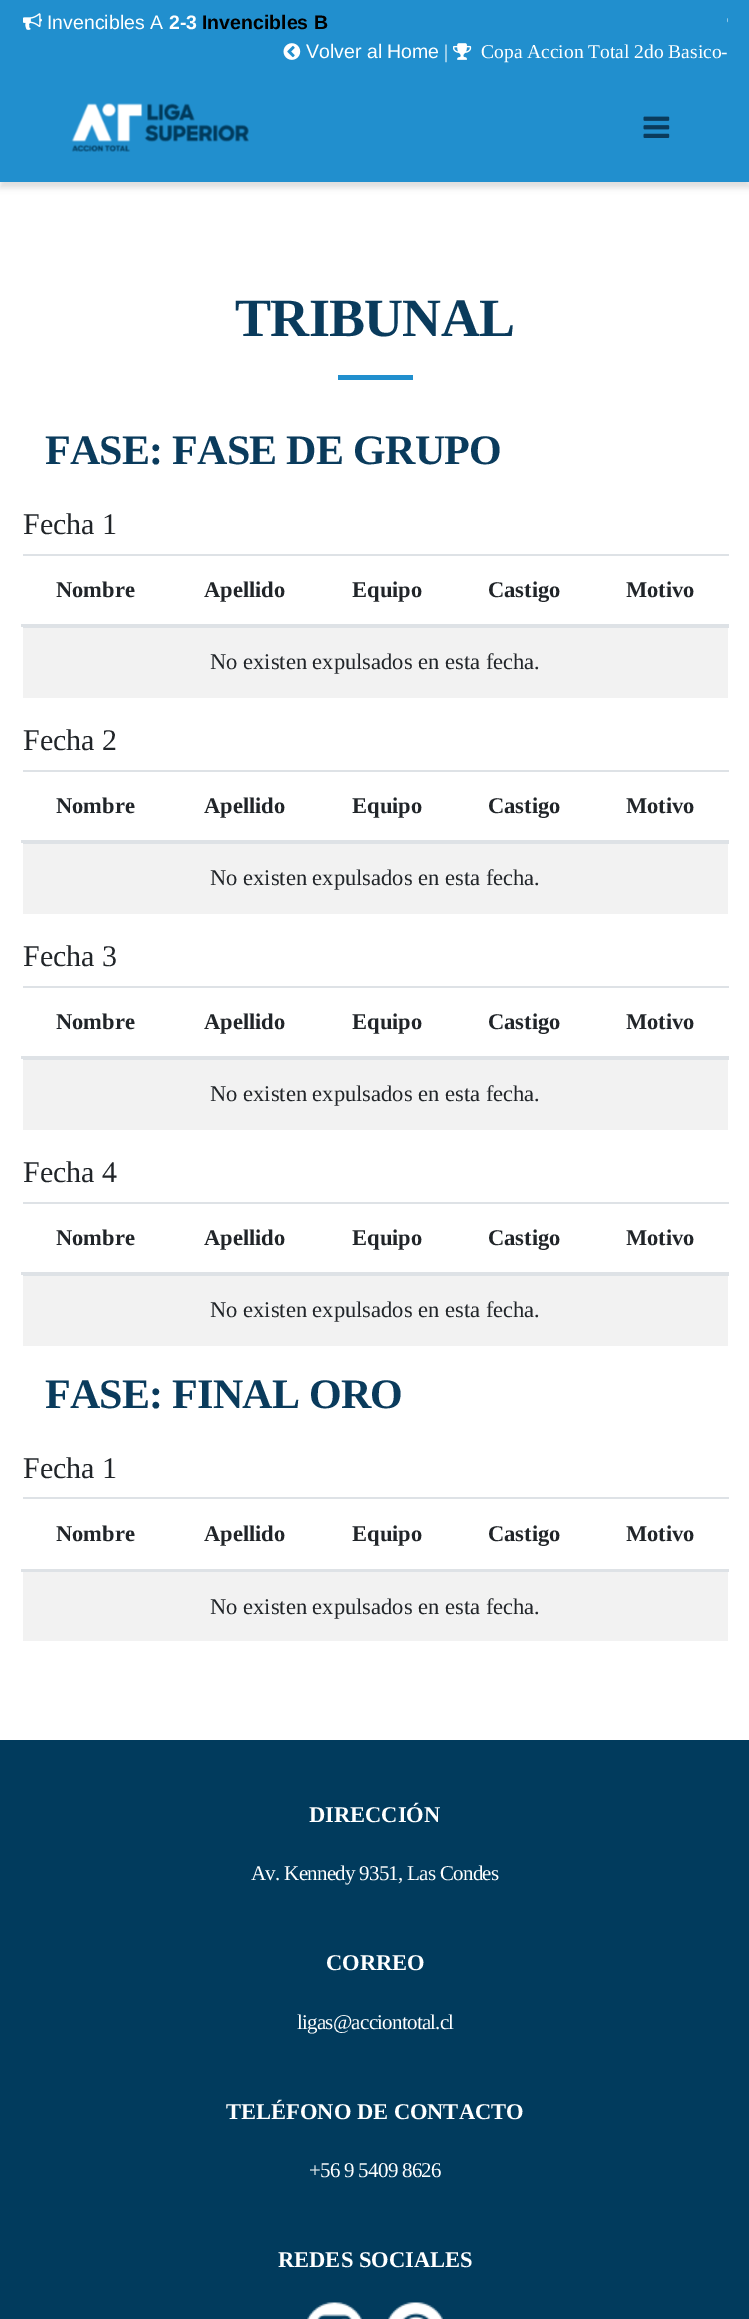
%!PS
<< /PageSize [749 2319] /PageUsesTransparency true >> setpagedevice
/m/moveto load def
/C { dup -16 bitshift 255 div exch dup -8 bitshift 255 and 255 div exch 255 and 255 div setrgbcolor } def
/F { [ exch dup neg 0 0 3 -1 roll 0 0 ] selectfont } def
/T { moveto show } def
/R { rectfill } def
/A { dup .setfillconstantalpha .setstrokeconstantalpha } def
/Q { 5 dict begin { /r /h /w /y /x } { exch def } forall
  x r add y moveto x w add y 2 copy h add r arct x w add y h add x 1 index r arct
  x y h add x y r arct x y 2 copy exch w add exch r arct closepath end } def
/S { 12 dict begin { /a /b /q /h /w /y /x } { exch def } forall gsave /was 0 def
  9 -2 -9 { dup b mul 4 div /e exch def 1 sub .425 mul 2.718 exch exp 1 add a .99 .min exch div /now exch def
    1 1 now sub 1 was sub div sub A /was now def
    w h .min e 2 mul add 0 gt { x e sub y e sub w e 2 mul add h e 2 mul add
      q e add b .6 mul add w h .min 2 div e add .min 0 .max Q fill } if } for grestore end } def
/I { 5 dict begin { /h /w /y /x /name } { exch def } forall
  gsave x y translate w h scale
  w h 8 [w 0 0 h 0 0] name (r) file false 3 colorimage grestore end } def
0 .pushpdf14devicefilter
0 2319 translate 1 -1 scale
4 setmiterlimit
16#FFFFFF C
0 0 749 2319 R
16#767676 C
0 6 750 182 0 3 .24 S
16#218FCE C
0 0 749 182 R
(1.rgb) 23 13 19 17 I
/LiberationSans-Regular 19.5 F
16#FFFFFF C
(Invencibles A) 47 29 T
/LiberationSans-Bold 19.5 F
(2-3) 169 29 T
16#000000 C
(Invencibles B) 202 29 T
(2.rgb) 727 18 1 5 I
(3.rgb) 283 43 18 17 I
/LiberationSans-Regular 19.5 F
16#FFFFFF C
(Volver al Home) 306 58 T
/LiberationSerif-Regular 19.5 F
(|) 444 58 T
(4.rgb) 453 43 19 17 I
(Copa Accion Total 2do Basico-) 481 58 T
(5.rgb) 71 103 178 49 I
(6.rgb) 643 116 27 22 I
/LiberationSerif-Bold 54 F
16#0A3B5C C
235 336 m -.75 0 (TRIBUNAL) ashow
16#218FCE C
338 375 75 5 R
/LiberationSerif-Bold 42 F
16#0A3B5C C
45 464 m -.75 0 (FASE: FASE DE GRUPO) ashow
/LiberationSerif-Regular 30 F
16#212529 C
(Fecha 1) 23 534 T
/LiberationSerif-Bold 22.5 F
(Nombre) 56 597 T
(Apellido) 204 597 T
(Equipo) 352 597 T
(Castigo) 488 597 T
16#DEE2E6 C
23 554 706 2 R
21 624 708 3 R
16#212529 C
(Motivo) 626 597 T
16#F2F2F2 C
23 628 705 70 R
16#DEE2E6 C
23 627 706 1 R
/LiberationSerif-Regular 22.5 F
16#212529 C
(No existen expulsados en esta fecha.) 210 669 T
/LiberationSerif-Regular 30 F
(Fecha 2) 23 750 T
/LiberationSerif-Bold 22.5 F
(Nombre) 56 813 T
(Apellido) 204 813 T
(Equipo) 352 813 T
(Castigo) 488 813 T
16#DEE2E6 C
23 770 706 2 R
21 840 708 3 R
16#212529 C
(Motivo) 626 813 T
16#F2F2F2 C
23 844 705 70 R
16#DEE2E6 C
23 843 706 1 R
/LiberationSerif-Regular 22.5 F
16#212529 C
(No existen expulsados en esta fecha.) 210 885 T
/LiberationSerif-Regular 30 F
(Fecha 3) 23 966 T
/LiberationSerif-Bold 22.5 F
(Nombre) 56 1029 T
(Apellido) 204 1029 T
(Equipo) 352 1029 T
(Castigo) 488 1029 T
16#DEE2E6 C
23 986 706 2 R
21 1056 708 3 R
16#212529 C
(Motivo) 626 1029 T
16#F2F2F2 C
23 1060 705 70 R
16#DEE2E6 C
23 1059 706 1 R
/LiberationSerif-Regular 22.5 F
16#212529 C
(No existen expulsados en esta fecha.) 210 1101 T
/LiberationSerif-Regular 30 F
(Fecha 4) 23 1182 T
/LiberationSerif-Bold 22.5 F
(Nombre) 56 1245 T
(Apellido) 204 1245 T
(Equipo) 352 1245 T
(Castigo) 488 1245 T
16#DEE2E6 C
23 1202 706 2 R
21 1272 708 3 R
16#212529 C
(Motivo) 626 1245 T
16#F2F2F2 C
23 1276 705 70 R
16#DEE2E6 C
23 1275 706 1 R
/LiberationSerif-Regular 22.5 F
16#212529 C
(No existen expulsados en esta fecha.) 210 1317 T
/LiberationSerif-Bold 42 F
16#0A3B5C C
45 1408 m -.75 0 (FASE: FINAL ORO) ashow
/LiberationSerif-Regular 30 F
16#212529 C
(Fecha 1) 23 1478 T
/LiberationSerif-Bold 22.5 F
(Nombre) 56 1541 T
(Apellido) 204 1541 T
(Equipo) 352 1541 T
(Castigo) 488 1541 T
16#DEE2E6 C
23 1497 706 2 R
21 1569 708 3 R
16#212529 C
(Motivo) 626 1541 T
16#F2F2F2 C
23 1572 705 69 R
/LiberationSerif-Regular 22.5 F
16#212529 C
(No existen expulsados en esta fecha.) 210 1614 T
16#013B5D C
0 1740 749 579 R
/LiberationSerif-Bold 22.5 F
16#FFFFFF C
(DIRECCIÓN) 309 1822 T
/LiberationSerif-Regular 21 F
251 1880 m -.75 0 (Av. Kennedy 9351, Las Condes) ashow
/LiberationSerif-Bold 22.5 F
(CORREO) 326 1970 T
/LiberationSerif-Regular 21 F
297 2029 m -.75 0 (ligas@acciontotal.cl) ashow
/LiberationSerif-Bold 22.5 F
(TELÉFONO DE CONTACTO) 226 2119 T
/LiberationSerif-Regular 21 F
309 2177 m -.75 0 (+56 9 5409 8626) ashow
/LiberationSerif-Bold 22.5 F
(REDES SOCIALES) 278 2267 T
(7.rgb) 307 2302 55 17 I
(8.rgb) 388 2302 55 17 I
.poppdf14devicefilter showpage
